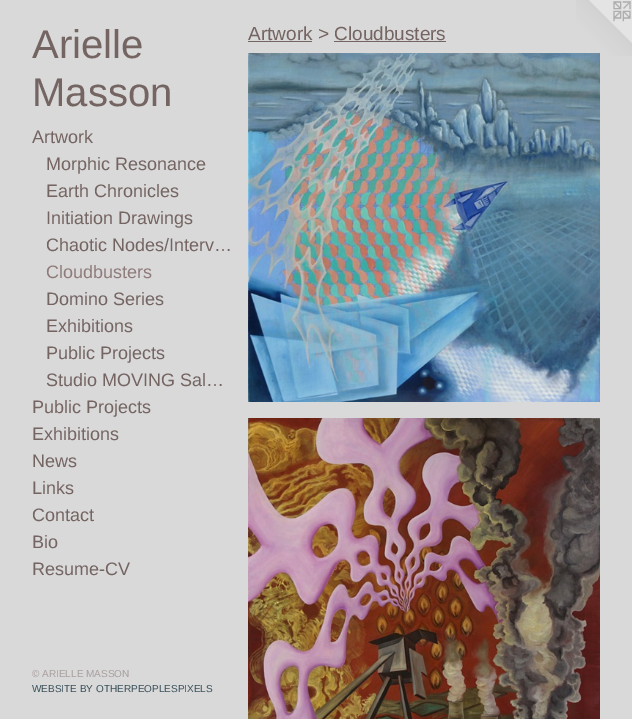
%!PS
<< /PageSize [632 719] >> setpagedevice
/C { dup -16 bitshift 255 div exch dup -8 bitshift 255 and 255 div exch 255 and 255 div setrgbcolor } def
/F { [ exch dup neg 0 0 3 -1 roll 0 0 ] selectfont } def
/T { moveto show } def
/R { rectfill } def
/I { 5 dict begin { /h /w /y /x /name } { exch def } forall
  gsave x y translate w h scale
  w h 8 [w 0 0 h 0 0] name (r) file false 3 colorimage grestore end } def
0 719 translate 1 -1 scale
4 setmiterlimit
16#D9D9D9 C
0 0 632 719 R
/LiberationSans-Regular 40 F
16#746462 C
(Arielle) 32 58 T
(Masson) 32 106 T
/LiberationSans-Regular 18 F
(Artwork) 32 143 T
(Morphic Resonance) 46 170 T
(Earth Chronicles) 46 197 T
(Initiation Drawings) 46 224 T
(Chaotic Nodes/Interv…) 46 251 T
16#8F7C7A C
(Cloudbusters) 46 278 T
16#746462 C
(Domino Series) 46 305 T
(Exhibitions) 46 332 T
(Public Projects) 46 359 T
(Studio MOVING Sal…) 46 386 T
(Public Projects) 32 413 T
(Exhibitions) 32 440 T
(News) 32 467 T
(Links) 32 494 T
(Contact) 32 521 T
(Bio) 32 548 T
(Resume-CV) 32 575 T
/LiberationSans-Regular 10 F
16#A99F9E C
(© ARIELLE MASSON) 32 677 T
16#39505A C
(WEBSITE BY OTHERPEOPLESPIXELS) 32 692 T
/LiberationSans-Regular 19 F
16#746462 C
(Artwork > Cloudbusters) 248 40 T
248 41 64 1 R
334 41 112 1 R
(3.rgb) 576 0 56 56 I
(1.rgb) 248 53 352 349 I
(2.rgb) 248 418 352 301 I
showpage
